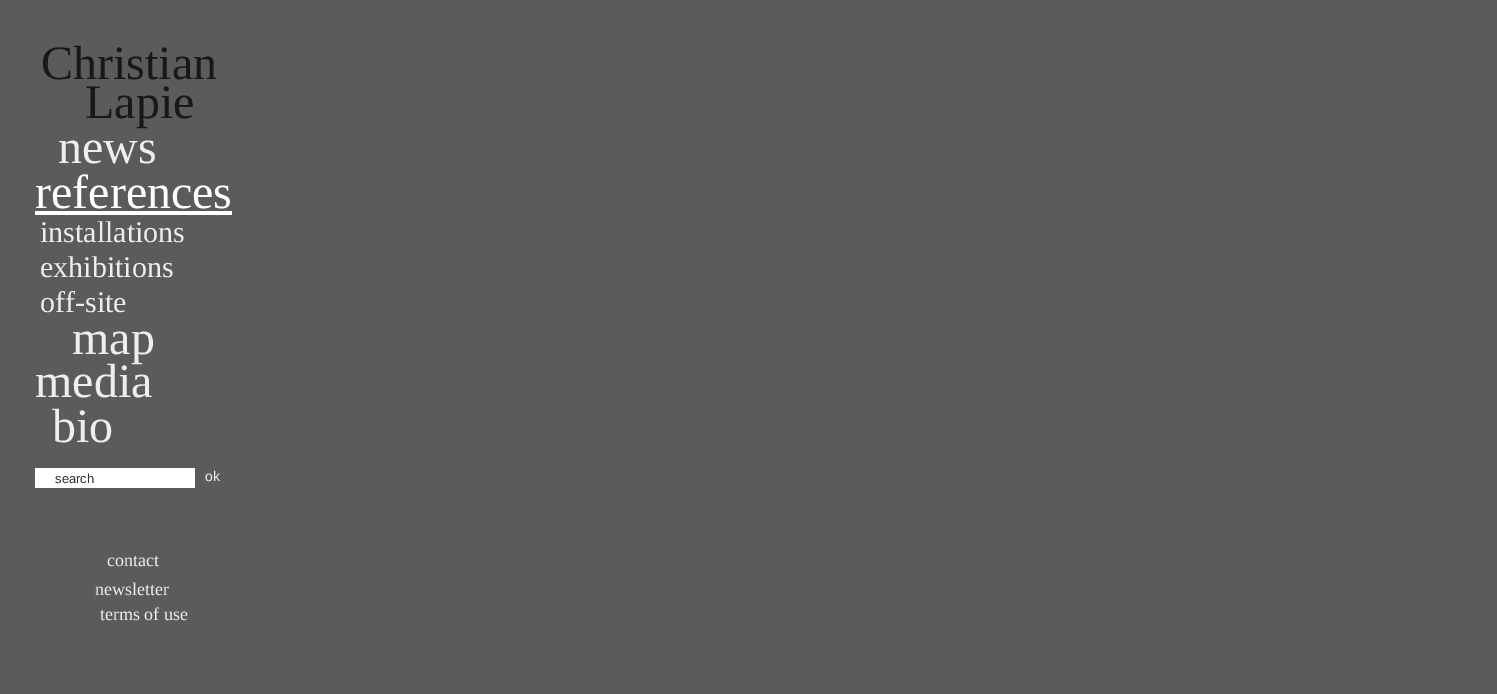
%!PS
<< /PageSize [1497 694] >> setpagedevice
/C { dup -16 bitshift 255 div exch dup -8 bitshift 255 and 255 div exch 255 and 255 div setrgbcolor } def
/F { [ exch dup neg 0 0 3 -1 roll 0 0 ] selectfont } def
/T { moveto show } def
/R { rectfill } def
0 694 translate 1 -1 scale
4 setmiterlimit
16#5B5B5B C
0 0 1497 694 R
/LiberationSerif-Regular 48 F
16#1A171B C
(Christian) 41 79 T
(Lapie) 85 118 T
16#EEEEEE C
(news) 58 163 T
16#FFFFFF C
(references) 35 208 T
35 211 197 4 R
/LiberationSerif-Regular 30 F
16#EEEEEE C
(installations) 40 242 T
(exhibitions) 40 277 T
(off-site) 40 312 T
/LiberationSerif-Regular 48 F
(map) 72 354 T
(media) 35 397 T
(bio) 52 442 T
16#FFFFFF C
35 468 160 20 R
/LiberationSans-Regular 13 F
16#333333 C
(search) 55 483 T
/LiberationSans-Regular 14 F
16#EEEEEE C
(ok) 205 481 T
/LiberationSerif-Regular 18 F
(contact) 107 566 T
(newsletter) 95 595 T
(terms of use) 100 620 T
showpage
